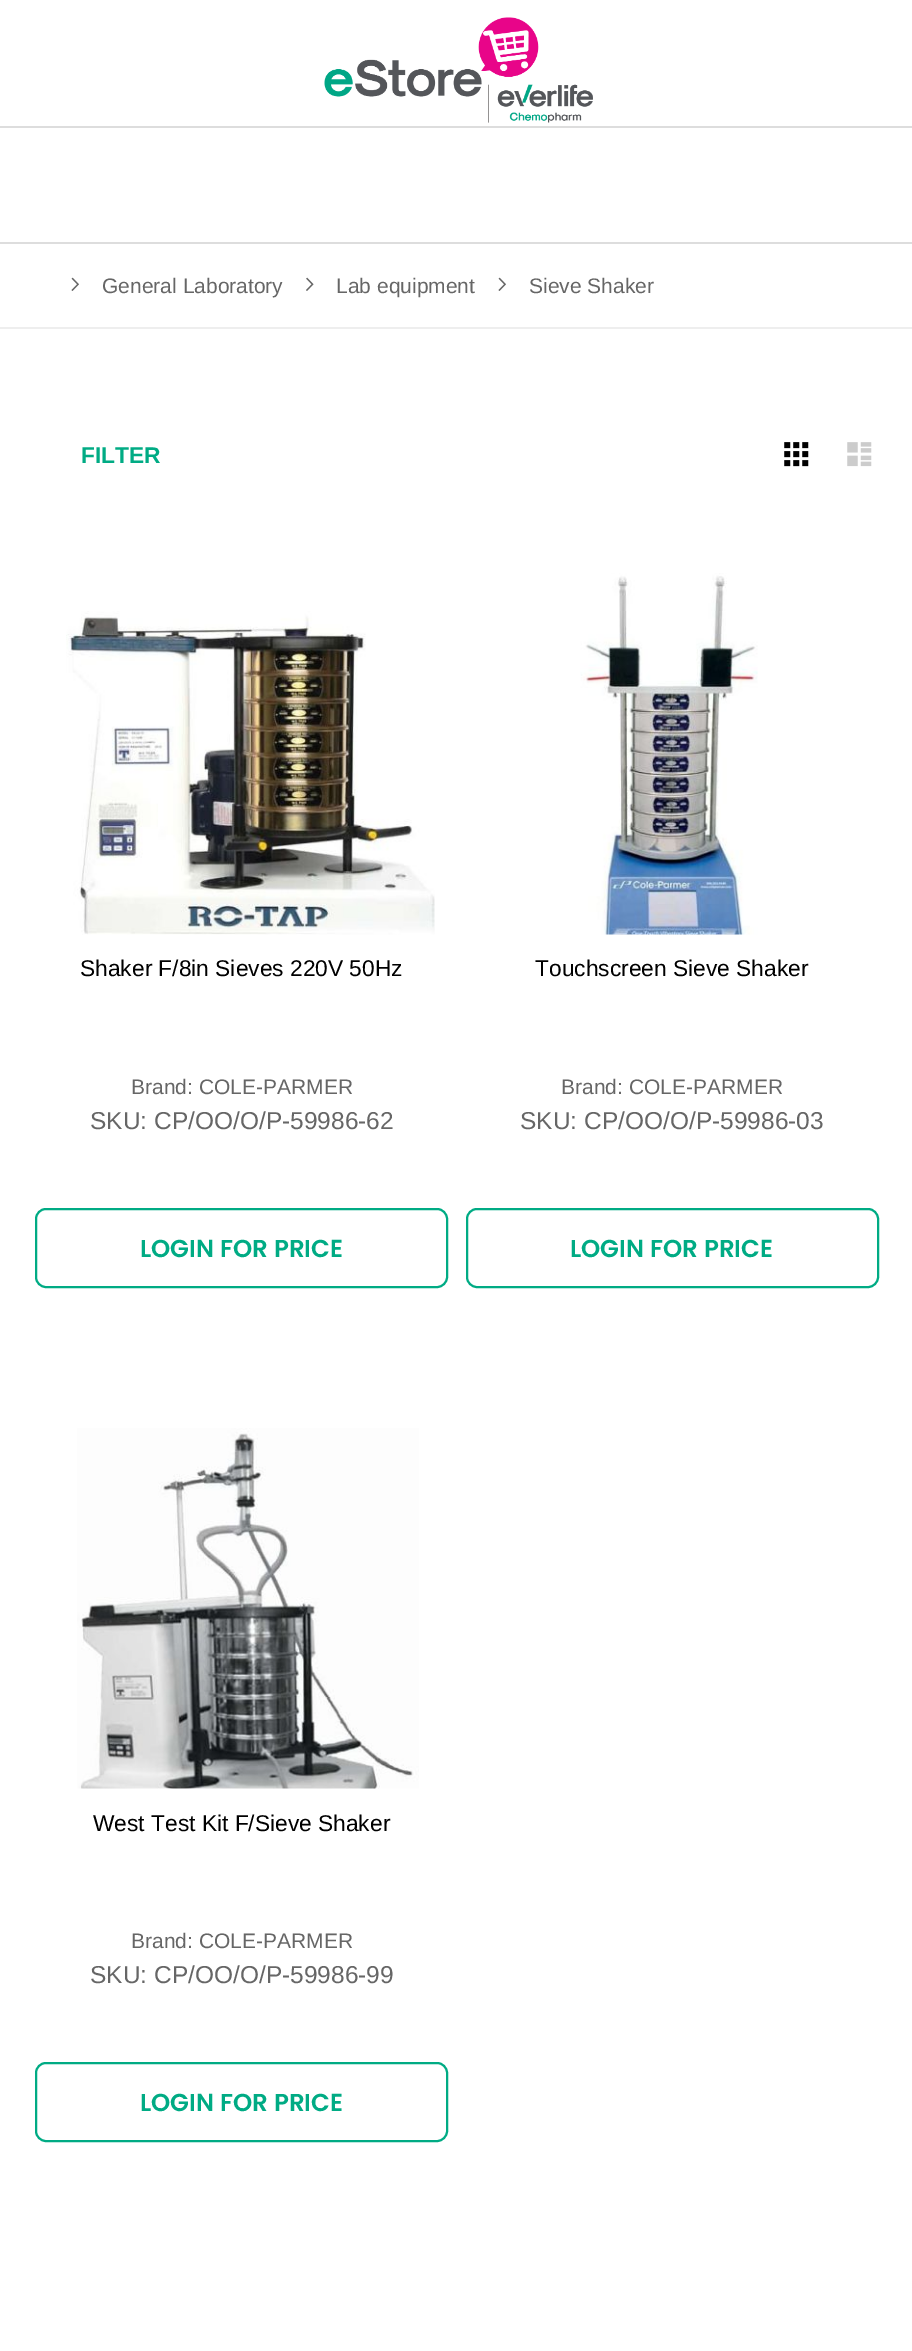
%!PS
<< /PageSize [912 2351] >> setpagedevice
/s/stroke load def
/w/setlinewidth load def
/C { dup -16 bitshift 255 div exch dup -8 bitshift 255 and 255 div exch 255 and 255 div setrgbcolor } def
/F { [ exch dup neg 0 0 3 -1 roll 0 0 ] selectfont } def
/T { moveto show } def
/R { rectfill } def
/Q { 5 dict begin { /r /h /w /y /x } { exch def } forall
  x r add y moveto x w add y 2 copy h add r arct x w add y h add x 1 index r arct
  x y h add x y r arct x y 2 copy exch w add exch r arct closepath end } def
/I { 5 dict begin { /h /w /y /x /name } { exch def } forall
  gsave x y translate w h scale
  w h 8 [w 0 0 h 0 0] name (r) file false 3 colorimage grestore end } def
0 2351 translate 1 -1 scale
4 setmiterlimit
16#FFFFFF C
0 0 912 2351 R
16#DDDDDD C
0 242 912 2 R
(1.rgb) 324 17 269 106 I
0 126 912 2 R
16#EEEEEE C
0 327 912 2 R
(2.rgb) 71 277 8 14 I
/LiberationSans-Regular 21 F
16#666666 C
(General Laboratory) 102 293 T
(3.rgb) 306 277 8 14 I
(Lab equipment) 336 293 T
(2.rgb) 498 277 8 14 I
(Sieve Shaker) 529 293 T
/LiberationSans-Bold 22.75 F
16#00AB84 C
(FILTER) 81 463 T
(4.rgb) 784 442 25 25 I
(5.rgb) 847 442 25 25 I
(6.rgb) 66 611 369 324 I
/LiberationSans-Regular 22.75 F
16#000000 C
(Shaker F/8in Sieves 220V 50Hz) 80 976 T
/LiberationSans-Regular 21 F
16#666666 C
(Brand: COLE-PARMER) 131 1094 T
/LiberationSans-Regular 24.5 F
(SKU: CP/OO/O/P-59986-62) 90 1129 T
16#00AB84 C
2 w
36 1209 411 78 10 Q s
/Poppins-SemiBold 24.5 F
(LOGIN FOR PRICE) 140 1257 T
(7.rgb) 580 573 178 362 I
/LiberationSans-Regular 22.75 F
16#000000 C
(Touchscreen Sieve Shaker) 535 976 T
/LiberationSans-Regular 21 F
16#666666 C
(Brand: COLE-PARMER) 561 1094 T
/LiberationSans-Regular 24.5 F
(SKU: CP/OO/O/P-59986-03) 520 1129 T
16#00AB84 C
467 1209 411 78 10 Q s
/Poppins-SemiBold 24.5 F
(LOGIN FOR PRICE) 570 1257 T
(8.rgb) 77 1428 342 361 I
/LiberationSans-Regular 22.75 F
16#000000 C
(West Test Kit F/Sieve Shaker) 93 1831 T
/LiberationSans-Regular 21 F
16#666666 C
(Brand: COLE-PARMER) 131 1948 T
/LiberationSans-Regular 24.5 F
(SKU: CP/OO/O/P-59986-99) 90 1983 T
16#00AB84 C
36 2063 411 78 10 Q s
/Poppins-SemiBold 24.5 F
(LOGIN FOR PRICE) 140 2111 T
showpage
